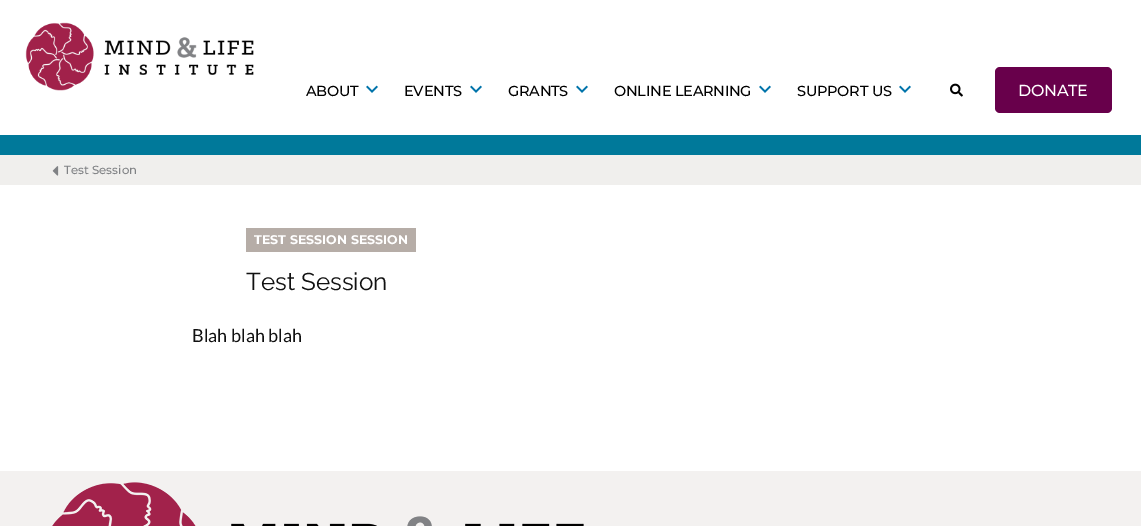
%!PS
<< /PageSize [1141 526] >> setpagedevice
/m/moveto load def
/f/fill load def
/C { dup -16 bitshift 255 div exch dup -8 bitshift 255 and 255 div exch 255 and 255 div setrgbcolor } def
/F { [ exch dup neg 0 0 3 -1 roll 0 0 ] selectfont } def
/T { moveto show } def
/R { rectfill } def
/Q { 5 dict begin { /r /h /w /y /x } { exch def } forall
  x r add y moveto x w add y 2 copy h add r arct x w add y h add x 1 index r arct
  x y h add x y r arct x y 2 copy exch w add exch r arct closepath end } def
/I { 5 dict begin { /h /w /y /x /name } { exch def } forall
  gsave x y translate w h scale
  w h 8 [w 0 0 h 0 0] name (r) file false 3 colorimage grestore end } def
0 526 translate 1 -1 scale
4 setmiterlimit
16#FFFFFF C
0 0 1141 526 R
(1.rgb) 25 22 229 69 I
/Montserrat-Medium 14.5 F
16#000000 C
306 96 m -.25 0 (ABOUT) ashow
(2.rgb) 366 85 12 8 I
404 96 m -.25 0 (EVENTS) ashow
(2.rgb) 470 85 12 8 I
508 96 m -.25 0 (GRANTS) ashow
(2.rgb) 576 85 12 8 I
614 96 m -.25 0 (ONLINE LEARNING) ashow
(2.rgb) 759 85 12 8 I
797 96 m -.25 0 (SUPPORT US) ashow
(2.rgb) 899 85 12 8 I
(3.rgb) 950 83 13 14 I
16#68004B C
995 67 117 46 5 Q f
/Montserrat-Medium 16 F
16#FFFFFF C
1018 96 m -.25 0 (DONATE) ashow
16#00799A C
0 135 1141 20 R
16#F0EFED C
0 155 1141 30 R
(4.rgb) 52 166 7 10 I
/Montserrat-Medium 11.75 F
16#808285 C
(Test Session) 64 174 T
16#B6ADA7 C
246 228 170 24 R
/Montserrat-Bold 12.6 F
16#FFFFFF C
(TEST SESSION SESSION) 254 244 T
/Raleway-Regular 24.25 F
16#111111 C
(Test Session) 246 290 T
/Lato-Regular 18 F
(Blah blah blah) 192 342 T
16#F3F1F0 C
0 471 1141 55 R
(5.rgb) 52 482 532 44 I
showpage
